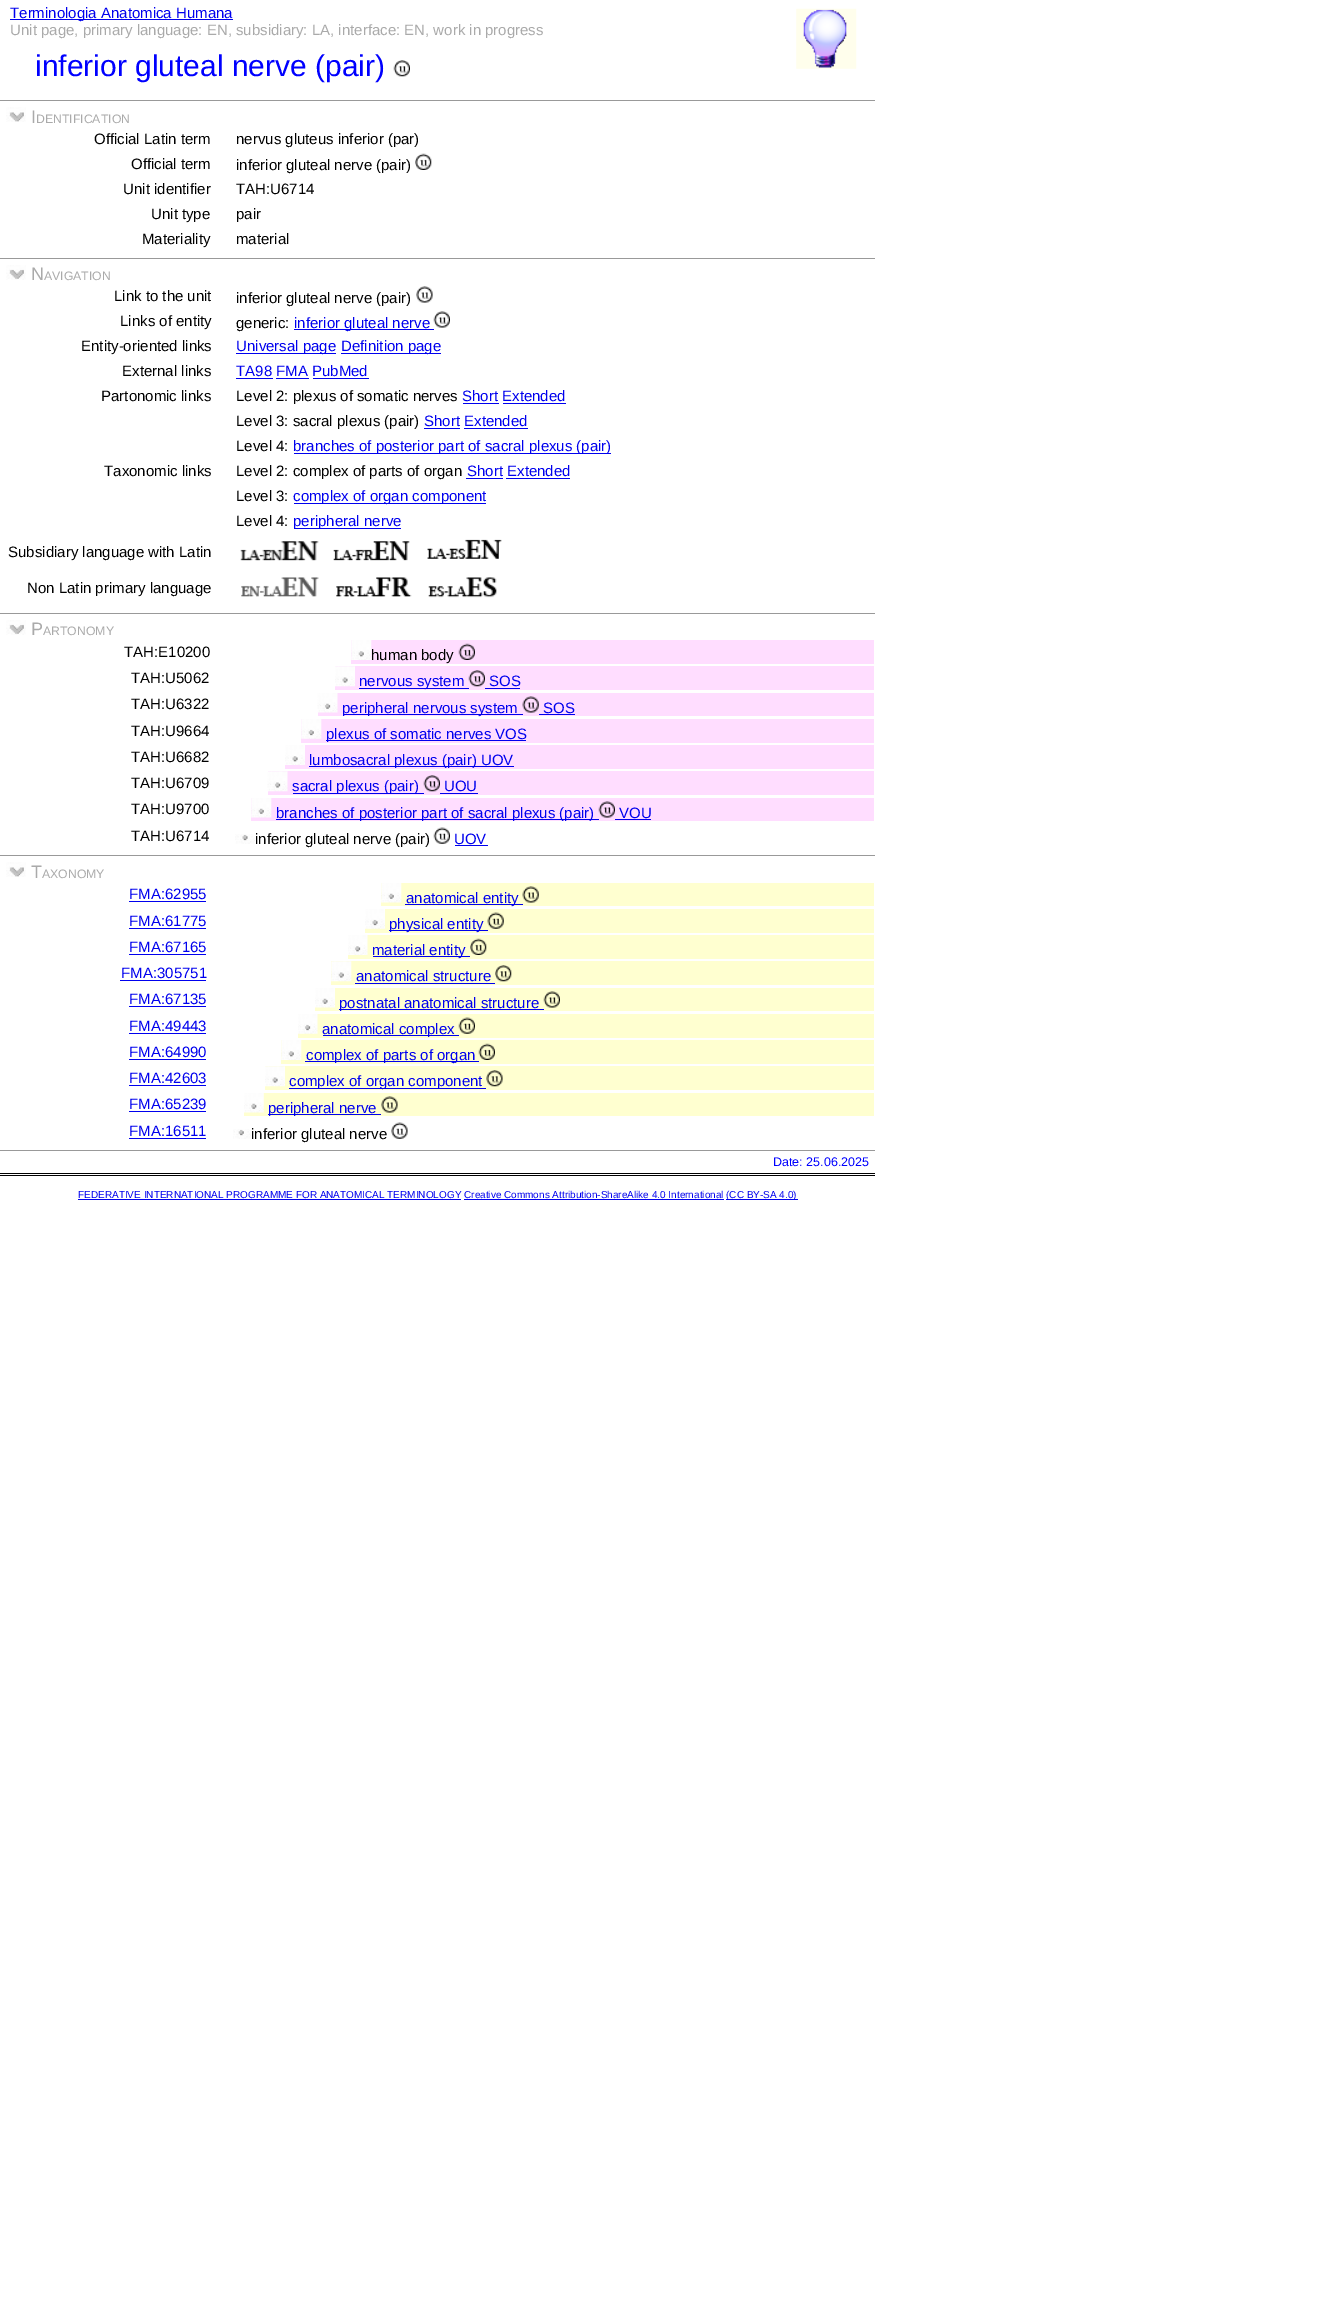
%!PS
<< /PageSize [1319 2306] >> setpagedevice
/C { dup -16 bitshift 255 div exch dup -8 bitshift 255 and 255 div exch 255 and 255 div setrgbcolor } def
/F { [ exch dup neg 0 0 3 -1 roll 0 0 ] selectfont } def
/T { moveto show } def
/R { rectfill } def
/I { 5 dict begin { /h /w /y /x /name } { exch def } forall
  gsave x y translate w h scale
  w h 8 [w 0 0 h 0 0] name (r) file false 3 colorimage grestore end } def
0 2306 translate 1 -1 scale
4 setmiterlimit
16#FFFFFF C
0 0 1319 2306 R
16#0000EE C
10 19 223 1 R
/LiberationSans-Regular 15 F
(Terminologia Anatomica Humana) 10 18 T
16#AAAAAA C
(Unit page, primary language: EN, subsidiary: LA, interface: EN, work in progress) 10 35 T
/LiberationSans-Regular 30 F
16#0000FF C
(inferior gluteal nerve \(pair\)) 35 76 T
(1.rgb) 393 60 17 17 I
(2.rgb) 796 8 61 61 I
16#999999 C
0 100 875 1 R
(3.rgb) 6 107 20 15 I
/LiberationSans-Regular 18 F
16#AAAAAA C
(I) 31 123 T
/LiberationSans-Regular 12.25 F
(DENTIFICATION) 36 123 T
/LiberationSans-Regular 15 F
16#000000 C
(Official Latin term) 94 144 T
(nervus gluteus inferior \(par\)) 236 144 T
(Official term) 131 169 T
(inferior gluteal nerve \(pair\)) 236 170 T
(4.rgb) 415 153 17 17 I
(Unit identifier) 123 194 T
(TAH:U6714) 236 194 T
(Unit type) 151 219 T
(pair) 236 219 T
(Materiality) 142 244 T
(material) 236 244 T
16#999999 C
0 258 875 1 R
(5.rgb) 6 265 20 15 I
/LiberationSans-Regular 18 F
16#AAAAAA C
(N) 31 280 T
/LiberationSans-Regular 12.25 F
(AVIGATION) 44 280 T
/LiberationSans-Regular 15 F
16#000000 C
(Link to the unit) 114 301 T
(inferior gluteal nerve \(pair\)) 236 303 T
(6.rgb) 416 286 17 17 I
(Links of entity) 120 326 T
(generic:) 236 328 T
16#0000EE C
294 329 140 1 R
(inferior gluteal nerve) 294 328 T
(7.rgb) 433 311 17 17 I
16#000000 C
(Entity-oriented links) 81 351 T
16#0000EE C
236 353 100 1 R
(Universal page) 236 351 T
341 353 100 1 R
(Definition page) 341 351 T
16#000000 C
(External links) 122 376 T
16#0000EE C
(TA98 FMA PubMed) 236 376 T
236 378 37 1 R
276 378 33 1 R
313 378 56 1 R
16#000000 C
(Partonomic links) 101 401 T
(Level 2: plexus of somatic nerves) 236 401 T
16#0000EE C
(Short Extended) 462 401 T
463 403 36 1 R
503 403 63 1 R
16#000000 C
(Level 3: sacral plexus \(pair\)) 236 426 T
16#0000EE C
(Short Extended) 424 426 T
424 428 36 1 R
464 428 64 1 R
16#000000 C
(Level 4:) 236 451 T
16#0000EE C
294 453 317 1 R
(branches of posterior part of sacral plexus \(pair\)) 293 451 T
16#000000 C
(Taxonomic links) 104 476 T
(Level 2: complex of parts of organ) 236 476 T
16#0000EE C
(Short Extended) 467 476 T
466 478 37 1 R
506 478 64 1 R
16#000000 C
(Level 3:) 236 501 T
16#0000EE C
294 503 192 1 R
(complex of organ component) 293 501 T
16#000000 C
(Level 4:) 236 526 T
16#0000EE C
294 528 107 1 R
(peripheral nerve) 293 526 T
16#000000 C
(Subsidiary language with Latin) 8 557 T
(8.rgb) 240 541 79 20 I
(9.rgb) 333 541 77 20 I
(10.rgb) 427 539 75 20 I
(Non Latin primary language) 27 593 T
(11.rgb) 241 577 78 20 I
(12.rgb) 336 577 76 20 I
(13.rgb) 428 577 69 21 I
16#999999 C
0 613 875 1 R
(5.rgb) 6 620 20 15 I
/LiberationSans-Regular 18 F
16#AAAAAA C
(P) 31 635 T
/LiberationSans-Regular 12.25 F
(ARTONOMY) 43 635 T
/LiberationSans-Regular 15 F
16#000000 C
(TAH:E10200) 124 657 T
16#FFDDFF C
351 640 523 24 R
(14.rgb) 351 640 21 20 I
16#000000 C
(human body) 371 660 T
(15.rgb) 458 643 17 17 I
(TAH:U5062) 131 683 T
16#FFDDFF C
335 666 539 24 R
(16.rgb) 335 666 20 21 I
16#0000EE C
359 688 110 1 R
(nervous system) 359 686 T
485 688 35 1 R
(17.rgb) 468 670 17 17 I
(SOS) 489 686 T
16#000000 C
(TAH:U6322) 131 709 T
16#FFDDFF C
318 693 556 23 R
(18.rgb) 317 693 21 20 I
16#0000EE C
343 714 180 1 R
(peripheral nervous system) 342 713 T
539 714 36 1 R
(19.rgb) 522 696 17 17 I
(SOS) 543 713 T
16#000000 C
(TAH:U9664) 131 736 T
16#FFDDFF C
301 719 573 24 R
(20.rgb) 301 719 21 20 I
16#0000EE C
326 740 200 1 R
(plexus of somatic nerves VOS) 326 739 T
16#000000 C
(TAH:U6682) 131 762 T
16#FFDDFF C
285 745 589 24 R
(21.rgb) 285 745 20 20 I
16#0000EE C
309 766 205 1 R
(lumbosacral plexus \(pair\) UOV) 309 765 T
16#000000 C
(TAH:U6709) 131 788 T
16#FFDDFF C
268 771 606 24 R
(22.rgb) 267 771 21 21 I
16#0000EE C
293 793 131 1 R
(sacral plexus \(pair\)) 292 791 T
440 793 38 1 R
(23.rgb) 423 775 17 17 I
(UOU) 444 791 T
16#000000 C
(TAH:U9700) 131 814 T
16#FFDDFF C
251 798 623 23 R
(24.rgb) 251 798 21 20 I
16#0000EE C
276 819 323 1 R
(branches of posterior part of sacral plexus \(pair\)) 276 818 T
615 819 36 1 R
(25.rgb) 598 801 17 17 I
(VOU) 619 818 T
16#000000 C
(TAH:U6714) 131 841 T
(26.rgb) 235 834 20 10 I
(inferior gluteal nerve \(pair\)) 255 844 T
(27.rgb) 433 827 17 17 I
16#0000EE C
(UOV) 454 844 T
455 845 33 1 R
16#999999 C
0 855 875 1 R
(3.rgb) 6 862 20 15 I
/LiberationSans-Regular 18 F
16#AAAAAA C
(T) 31 878 T
/LiberationSans-Regular 12.25 F
(AXONOMY) 42 878 T
/LiberationSans-Regular 15 F
16#0000EE C
(FMA:62955) 129 899 T
129 901 77 1 R
16#FFFFD0 C
381 883 493 23 R
(28.rgb) 381 883 21 20 I
16#0000EE C
405 904 118 1 R
(anatomical entity) 406 903 T
(29.rgb) 522 886 17 17 I
(FMA:61775) 129 926 T
129 928 77 1 R
16#FFFFD0 C
365 909 509 24 R
(30.rgb) 365 909 20 20 I
16#0000EE C
389 930 99 1 R
(physical entity) 389 929 T
(31.rgb) 487 912 17 17 I
(FMA:67165) 129 952 T
129 954 77 1 R
16#FFFFD0 C
348 935 526 24 R
(32.rgb) 348 935 20 20 I
16#0000EE C
373 956 97 1 R
(material entity) 372 955 T
(33.rgb) 470 938 17 17 I
(FMA:305751) 121 978 T
120 980 86 1 R
16#FFFFD0 C
331 961 543 24 R
(34.rgb) 331 961 21 21 I
16#0000EE C
(anatomical structure) 356 981 T
355 983 140 1 R
(35.rgb) 495 965 17 17 I
(FMA:67135) 129 1004 T
129 1006 77 1 R
16#FFFFD0 C
315 988 559 23 R
(36.rgb) 315 988 20 20 I
16#0000EE C
339 1009 205 1 R
(postnatal anatomical structure) 339 1008 T
(37.rgb) 543 991 17 17 I
(FMA:49443) 129 1031 T
129 1033 77 1 R
16#FFFFD0 C
298 1014 576 24 R
(38.rgb) 298 1014 20 20 I
16#0000EE C
323 1035 136 1 R
(anatomical complex) 322 1034 T
(39.rgb) 458 1017 17 17 I
(FMA:64990) 129 1057 T
129 1059 77 1 R
16#FFFFD0 C
281 1040 593 24 R
(40.rgb) 281 1040 21 20 I
16#0000EE C
305 1061 174 1 R
(complex of parts of organ) 306 1060 T
(41.rgb) 478 1043 17 17 I
(FMA:42603) 129 1083 T
129 1085 77 1 R
16#FFFFD0 C
265 1066 609 24 R
(42.rgb) 265 1066 20 21 I
16#0000EE C
289 1088 197 1 R
(complex of organ component) 289 1086 T
(43.rgb) 486 1070 17 17 I
(FMA:65239) 129 1109 T
129 1111 77 1 R
16#FFFFD0 C
244 1093 630 23 R
(44.rgb) 244 1093 20 20 I
16#0000EE C
268 1114 113 1 R
(peripheral nerve) 268 1113 T
(45.rgb) 381 1096 17 17 I
(FMA:16511) 129 1136 T
129 1138 77 1 R
(46.rgb) 233 1129 18 10 I
16#000000 C
(inferior gluteal nerve) 251 1139 T
(47.rgb) 391 1122 17 17 I
16#999999 C
0 1150 875 1 R
16#000000 C
0 1173 875 1 R
0 1175 875 1 R
/LiberationSans-Regular 12.5 F
16#0000FF C
(Date: 25.06.2025) 773 1166 T
/LiberationSans-Regular 10 F
16#0000EE C
(FEDERATIVE INTERNATIONAL PROGRAMME FOR ANATOMICAL TERMINOLOGY Creative Commons Attribution-ShareAlike 4.0 International) 78 1198 T
78 1199 383 1 R
726 1199 72 1 R
(\(CC BY-SA 4.0\)) 726 1198 T
464 1199 260 1 R
showpage
